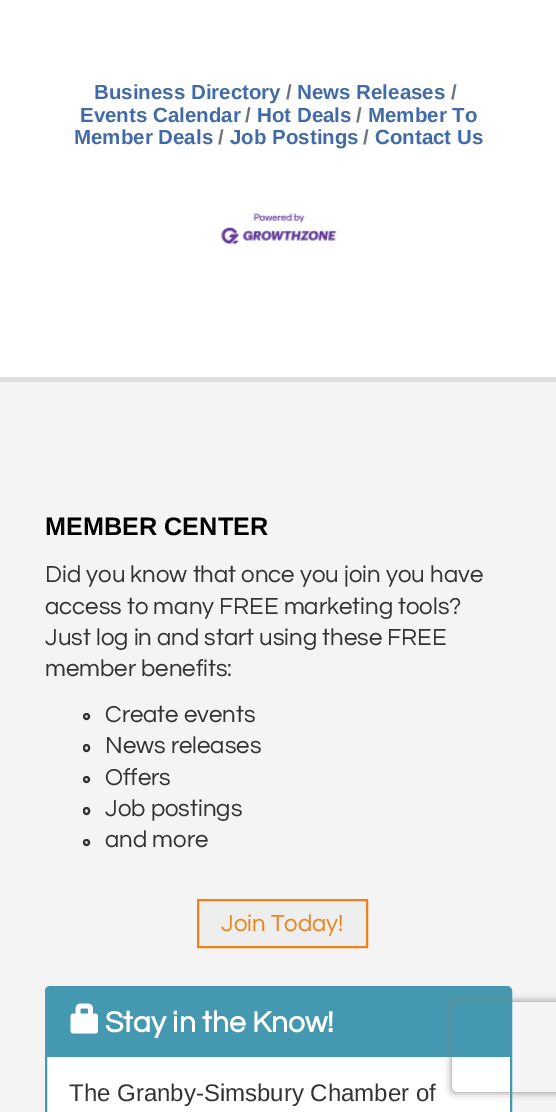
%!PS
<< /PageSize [556 1112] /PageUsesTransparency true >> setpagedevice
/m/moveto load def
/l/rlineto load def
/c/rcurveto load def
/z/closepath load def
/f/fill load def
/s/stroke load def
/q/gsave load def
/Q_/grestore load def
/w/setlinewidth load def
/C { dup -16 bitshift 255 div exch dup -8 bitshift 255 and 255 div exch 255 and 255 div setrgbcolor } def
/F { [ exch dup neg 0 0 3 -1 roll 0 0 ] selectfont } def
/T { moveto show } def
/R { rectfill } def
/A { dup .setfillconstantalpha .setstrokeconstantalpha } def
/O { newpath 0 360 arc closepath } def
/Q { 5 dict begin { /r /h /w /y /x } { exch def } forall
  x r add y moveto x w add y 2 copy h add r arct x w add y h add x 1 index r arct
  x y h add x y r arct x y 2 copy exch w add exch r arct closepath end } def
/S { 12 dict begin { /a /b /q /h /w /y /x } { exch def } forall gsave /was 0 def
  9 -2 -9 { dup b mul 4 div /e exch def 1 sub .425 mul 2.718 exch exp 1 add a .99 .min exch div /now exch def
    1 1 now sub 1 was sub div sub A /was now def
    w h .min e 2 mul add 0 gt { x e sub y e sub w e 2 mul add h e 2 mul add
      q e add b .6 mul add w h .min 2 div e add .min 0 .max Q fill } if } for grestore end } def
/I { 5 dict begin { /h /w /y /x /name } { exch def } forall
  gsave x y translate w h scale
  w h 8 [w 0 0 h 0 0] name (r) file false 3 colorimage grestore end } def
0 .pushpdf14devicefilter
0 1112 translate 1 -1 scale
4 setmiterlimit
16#FFFFFF C
0 0 556 1112 R
/LiberationSans-Bold 20.5 F
16#6C757D C
(/) 451 99 T
16#406BA8 C
(Events Calendar) 80 122 T
(Business Directory) 94 99 T
16#6C757D C
(/) 286 99 T
16#406BA8 C
(News Releases) 297 99 T
16#6C757D C
(/) 356 122 T
16#406BA8 C
(Member To) 368 122 T
(Member Deals) 74 144 T
16#6C757D C
(/) 245 122 T
16#406BA8 C
(Hot Deals) 257 122 T
16#6C757D C
(/) 218 144 T
16#406BA8 C
(Job Postings) 230 144 T
16#6C757D C
(/) 363 144 T
16#406BA8 C
(Contact Us) 375 144 T
(1.rgb) 221 213 116 32 I
16#F4F4F4 C
0 382 556 730 R
16#E0E0E0 C
0 377 556 5 R
/LiberationSans-Bold 25.25 F
16#000000 C
(MEMBER CENTER) 45 535 T
/Questrial-Regular 24 F
16#333333 C
(Did you know that once you join you have) 45 582 T
(access to many FREE marketing tools?) 45 614 T
(Just log in and start using these FREE) 45 645 T
(member benefits:) 45 676 T
2 w
86.5 716.5 2.5 O s
(Create events) 105 722 T
84 745 5 6 2.5 Q s
(News releases) 105 753 T
86.5 779.5 2.5 O s
(Offers) 105 785 T
84 808 5 6 2.5 Q s
(Job postings) 105 816 T
86.5 842.5 2.5 O s
(and more) 105 847 T
16#EEEEEE C
198 900 m 169 0 l 0 47 l -169 0 l z q f Q_
16#EE821A C
s
(Join Today!) 221 931 T
16#FFFFFF C
46 987 465 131 4 Q q f Q_
16#4498AF C
s
47 988 463 69 R
(2.rgb) 70 1003 28 31 I
/Questrial-Bold 30 F
16#FFFFFF C
(Stay in the Know!) 105 1032 T
/LiberationSans-Regular 24 F
16#333333 C
(The Granby-Simsbury Chamber of) 69 1101 T
q
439 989 m 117 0 l 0 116 l -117 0 l z 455 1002 m 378 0 l 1.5 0 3 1.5 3 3 c 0 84 l 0 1.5 -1.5 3 -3 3 c -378 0 l -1.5 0 -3 -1.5 -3 -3 c 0 -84 l 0 -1.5 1.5 -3 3 -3 c z eoclip newpath
16#808080 C
452 1002 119 90 3 4 1 S
Q_
.poppdf14devicefilter showpage
